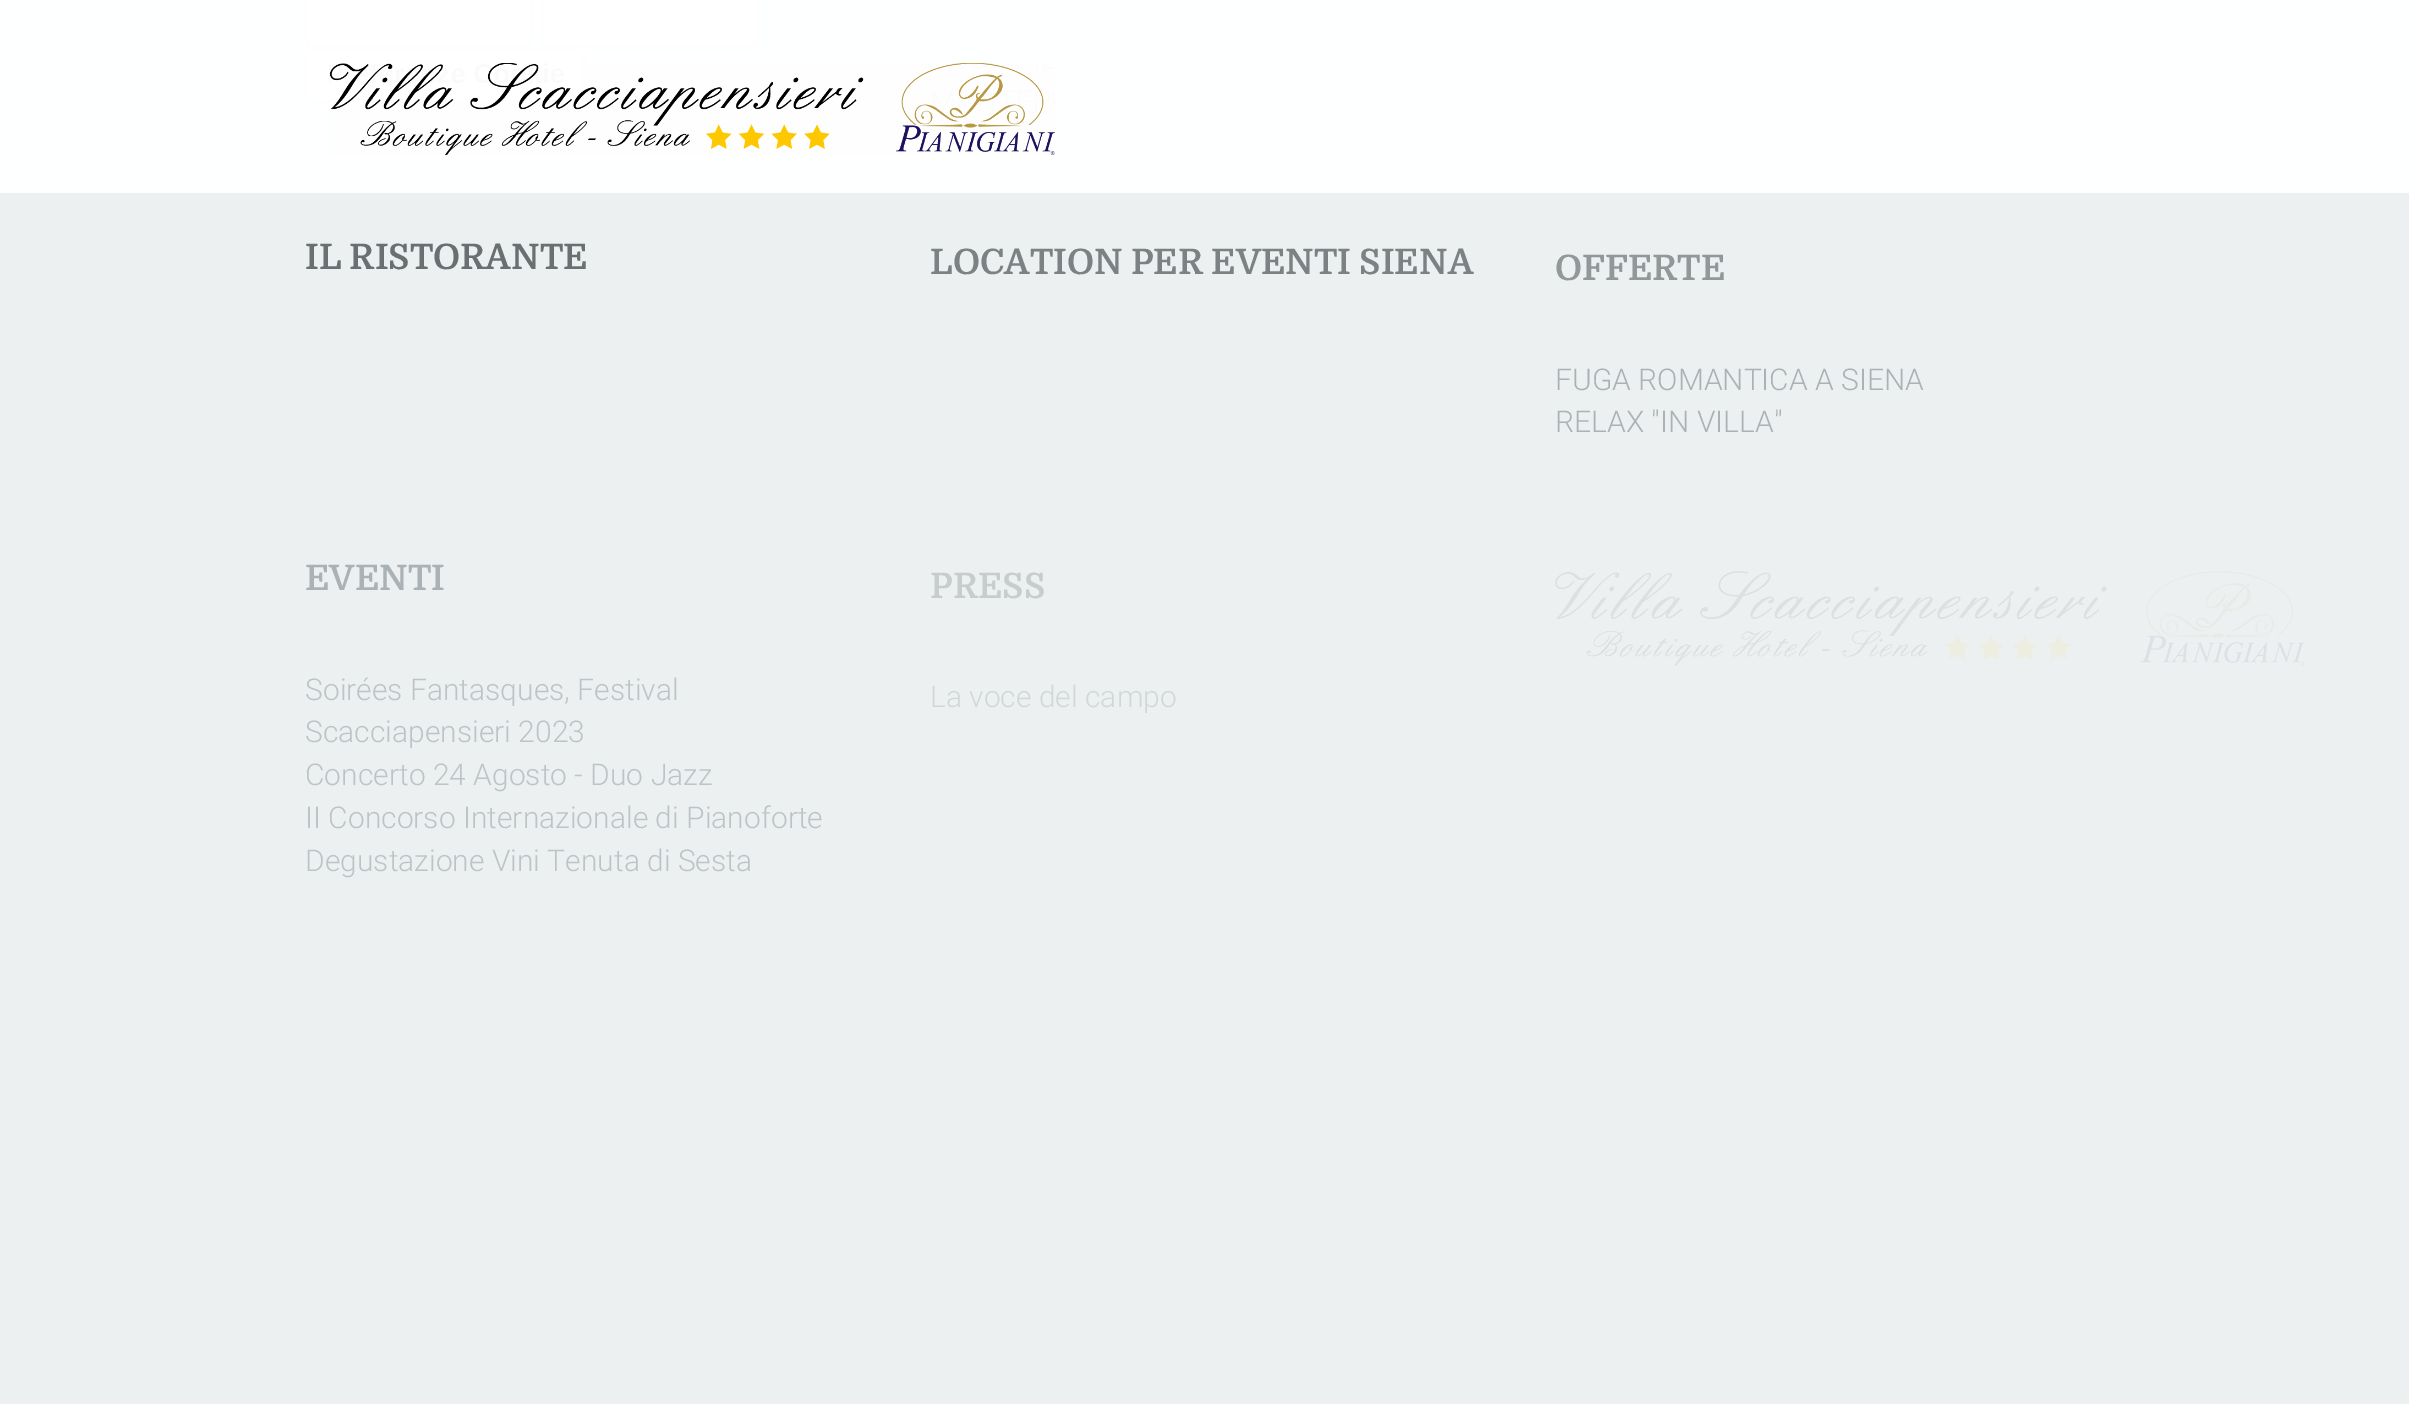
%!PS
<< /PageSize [2409 1404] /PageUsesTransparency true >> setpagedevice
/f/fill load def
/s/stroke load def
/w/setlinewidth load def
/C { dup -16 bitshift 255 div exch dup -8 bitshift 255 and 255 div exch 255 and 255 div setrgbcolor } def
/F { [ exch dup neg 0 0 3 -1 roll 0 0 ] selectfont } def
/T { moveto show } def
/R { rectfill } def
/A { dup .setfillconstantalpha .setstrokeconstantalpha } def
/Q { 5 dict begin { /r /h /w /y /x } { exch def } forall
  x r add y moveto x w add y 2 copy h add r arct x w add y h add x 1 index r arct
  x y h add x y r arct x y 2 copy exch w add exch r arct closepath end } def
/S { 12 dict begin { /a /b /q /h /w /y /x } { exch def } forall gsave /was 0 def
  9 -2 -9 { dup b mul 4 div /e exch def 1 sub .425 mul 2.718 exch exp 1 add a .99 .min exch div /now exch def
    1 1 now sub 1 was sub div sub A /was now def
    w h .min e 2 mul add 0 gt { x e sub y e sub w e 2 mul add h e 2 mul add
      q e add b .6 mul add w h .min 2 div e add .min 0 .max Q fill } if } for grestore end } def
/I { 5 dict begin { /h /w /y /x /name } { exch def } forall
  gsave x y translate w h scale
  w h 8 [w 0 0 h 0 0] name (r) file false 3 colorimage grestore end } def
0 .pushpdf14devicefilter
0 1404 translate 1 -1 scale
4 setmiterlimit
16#ECF0F1 C
0 0 2409 1404 R
16#171818 C
308 0 222 48 5 1 .15 S
16#FDFEFE C
305 -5 228 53 8 Q f
0.15 A
16#171818 C
3 w
306.5 -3.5 225 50 6.5 Q s
1 A
543 0 215 48 5 1 .15 S
16#FDFEFE C
540 -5 220 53 8 Q f
0.15 A
16#171818 C
541.5 -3.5 217 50 6.5 Q s
1 A
308 53 275 50 5 1 .15 S
16#FDFEFE C
305 48 280 55 8 Q f
0.15 A
16#171818 C
306.5 49.5 277 52 6.5 Q s
0.97 A
16#FFFFFF C
0 0 2409 193 R
1 A
(1.rgb) 329 63 726 92 I
/Domine-Bold 35 F
16#6A7072 C
(IL RISTORANTE) 305 269 T
16#7C8284 C
(LOCATION PER EVENTI SIENA) 930 274 T
16#929799 C
(OFFERTE) 1555 280 T
/Roboto-Light 30 F
16#AAB2B6 C
(FUGA ROMANTICA A SIENA) 1555 390 T
(RELAX "IN VILLA") 1555 432 T
/Domine-Bold 35 F
(EVENTI) 305 590 T
/Roboto-Light 30 F
16#BDC4C7 C
(Soirées Fantasques, Festival) 305 700 T
(Scacciapensieri 2023) 305 742 T
(Concerto 24 Agosto - Duo Jazz) 305 785 T
(II Concorso Internazionale di Pianoforte) 305 828 T
(Degustazione Vini Tenuta di Sesta) 305 871 T
/Domine-Bold 35 F
16#C7CCCD C
(PRESS) 930 598 T
/Roboto-Light 30 F
16#D1D7D9 C
(La voce del campo) 930 707 T
(2.rgb) 1555 571 750 95 I
.poppdf14devicefilter showpage
